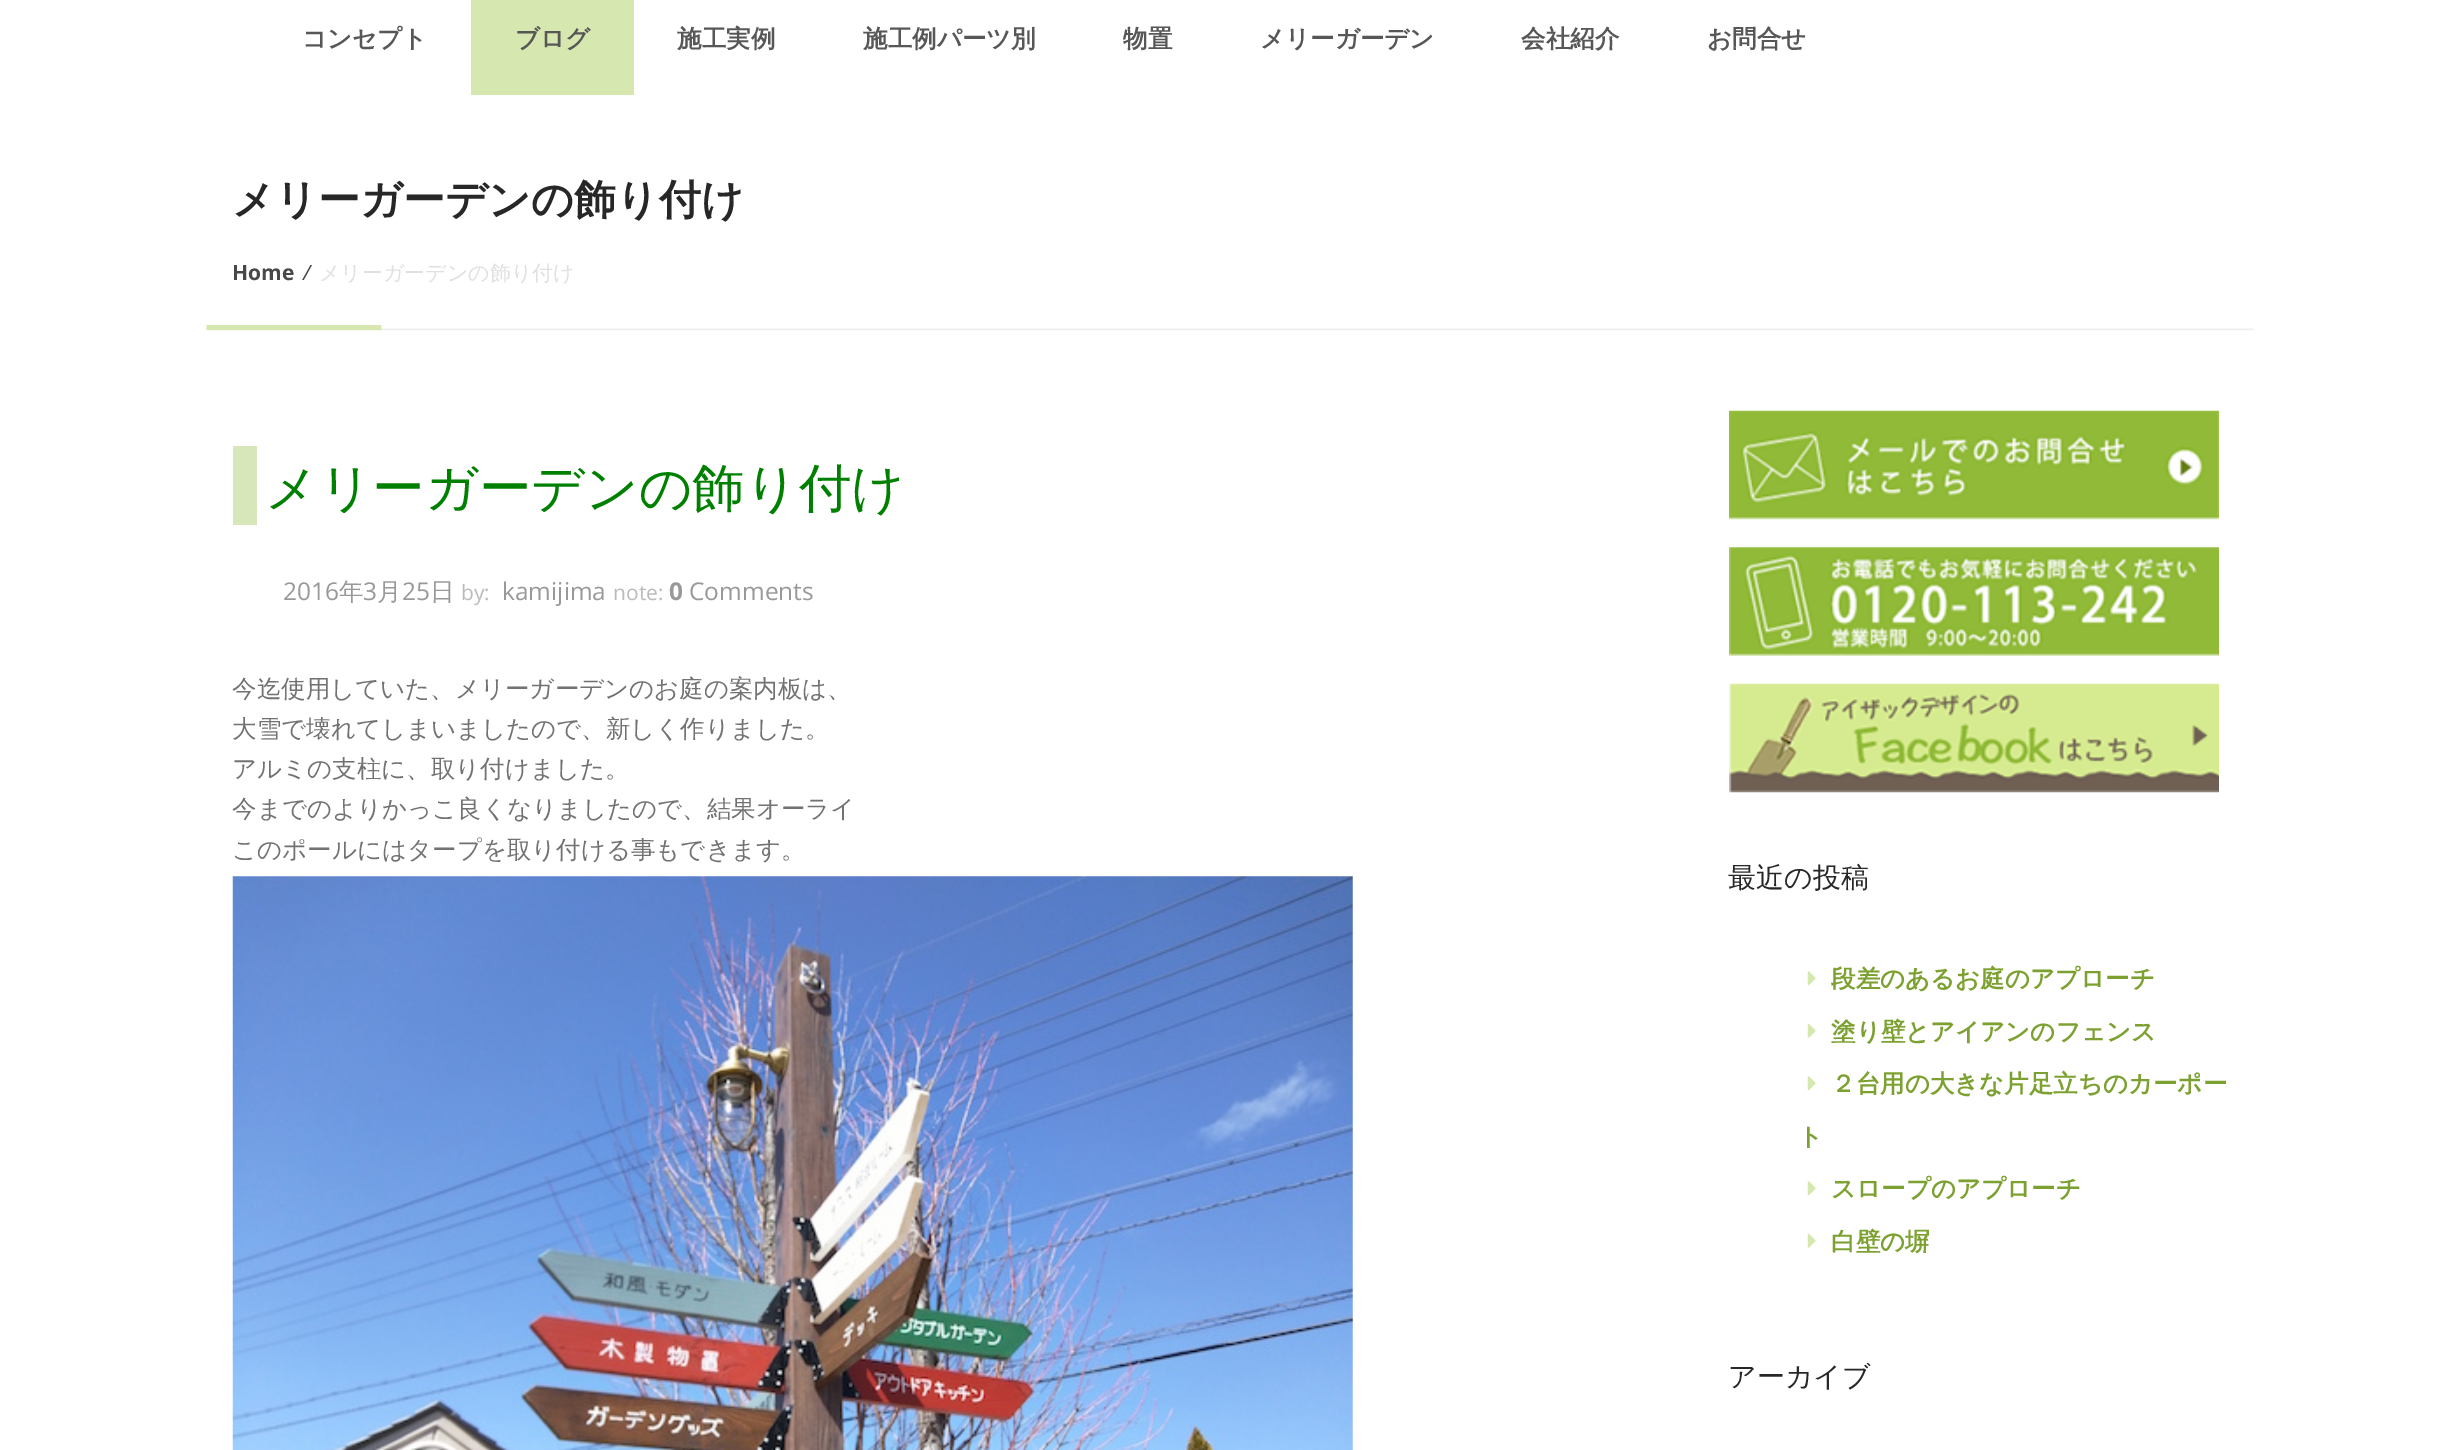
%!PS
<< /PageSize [2458 1450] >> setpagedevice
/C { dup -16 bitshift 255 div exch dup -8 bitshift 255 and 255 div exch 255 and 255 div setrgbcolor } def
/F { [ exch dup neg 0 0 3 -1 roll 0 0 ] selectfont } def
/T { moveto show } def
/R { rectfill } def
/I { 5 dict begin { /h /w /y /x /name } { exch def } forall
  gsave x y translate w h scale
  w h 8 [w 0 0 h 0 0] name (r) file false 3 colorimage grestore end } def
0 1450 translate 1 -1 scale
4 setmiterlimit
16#FFFFFF C
0 0 2458 1450 R
/WenQuanYiZenHei-Bold 24.5 F
16#575757 C
(コンセプト) 302 47 T
16#D6E8AF C
471 0 163 95 R
16#575757 C
(ブログ) 515 47 T
(施工実例) 677 47 T
(施工例パーツ別) 863 47 T
(物置) 1123 47 T
(メリーガーデン) 1260 47 T
(会社紹介) 1521 47 T
(お問合せ) 1707 47 T
(1.rgb) 206 325 2048 6 I
/WenQuanYiZenHei-Bold 42 F
16#272727 C
(メリーガーデンの飾り付け) 232 214 T
/OpenSans-Bold 21 F
16#484848 C
(Home) 232 280 T
/OpenSans-Italic 21 F
(/) 303 280 T
/WenQuanYiZenHei-Medium 21 F
16#E0E0E0 C
(メリーガーデンの飾り付け) 319 280 T
16#D8E7B9 C
233 446 24 79 R
/WenQuanYiZenHei-Medium 52.5 F
16#008000 C
(メリーガーデンの飾り付け) 265 506 T
/OpenSans-Regular 24.5 F
16#999999 C
(2016) 283 600 T
/WenQuanYiZenHei-Medium 24.5 F
(年) 339 600 T
/OpenSans-Regular 24.5 F
(3) 363 600 T
/WenQuanYiZenHei-Medium 24.5 F
(月) 377 600 T
/OpenSans-Regular 24.5 F
(25) 402 600 T
/WenQuanYiZenHei-Medium 24.5 F
(日) 430 600 T
/OpenSans-Regular 21 F
16#BBBBBB C
(by:) 461 600 T
/OpenSans-Regular 24.5 F
16#999999 C
(kamijima) 502 600 T
/OpenSans-Regular 21 F
16#BBBBBB C
(note:) 613 600 T
/OpenSans-Bold 24.5 F
16#999999 C
(0) 669 600 T
/OpenSans-Regular 24.5 F
(Comments) 689 600 T
/WenQuanYiZenHei-Medium 24.5 F
16#727272 C
(今迄使用していた、メリーガーデンのお庭の案内板は、) 232 697 T
(大雪で壊れてしまいましたので、新しく作りました。) 232 737 T
(アルミの支柱に、取り付けました。) 232 777 T
(今までのよりかっこ良くなりましたので、結果オーライ) 232 817 T
(このポールにはタープを取り付ける事もできます。) 232 858 T
(2.rgb) 232 876 1121 574 I
(3.rgb) 1729 410 490 110 I
(4.rgb) 1729 547 490 109 I
(5.rgb) 1729 683 490 110 I
/WenQuanYiZenHei-Medium 28 F
16#272727 C
(最近の投稿) 1728 887 T
(6.rgb) 1807 971 9 15 I
/WenQuanYiZenHei-Bold 24.5 F
16#7DA131 C
(段差のあるお庭のアプローチ) 1831 987 T
(7.rgb) 1807 1023 9 15 I
(塗り壁とアイアンのフェンス) 1831 1040 T
(6.rgb) 1807 1076 9 15 I
(２台用の大きな片足立ちのカーポー) 1831 1092 T
(ト) 1798 1145 T
(6.rgb) 1807 1181 9 15 I
(スロープのアプローチ) 1831 1197 T
(7.rgb) 1807 1233 9 15 I
(白壁の塀) 1831 1250 T
/WenQuanYiZenHei-Medium 28 F
16#272727 C
(アーカイブ) 1728 1386 T
showpage
